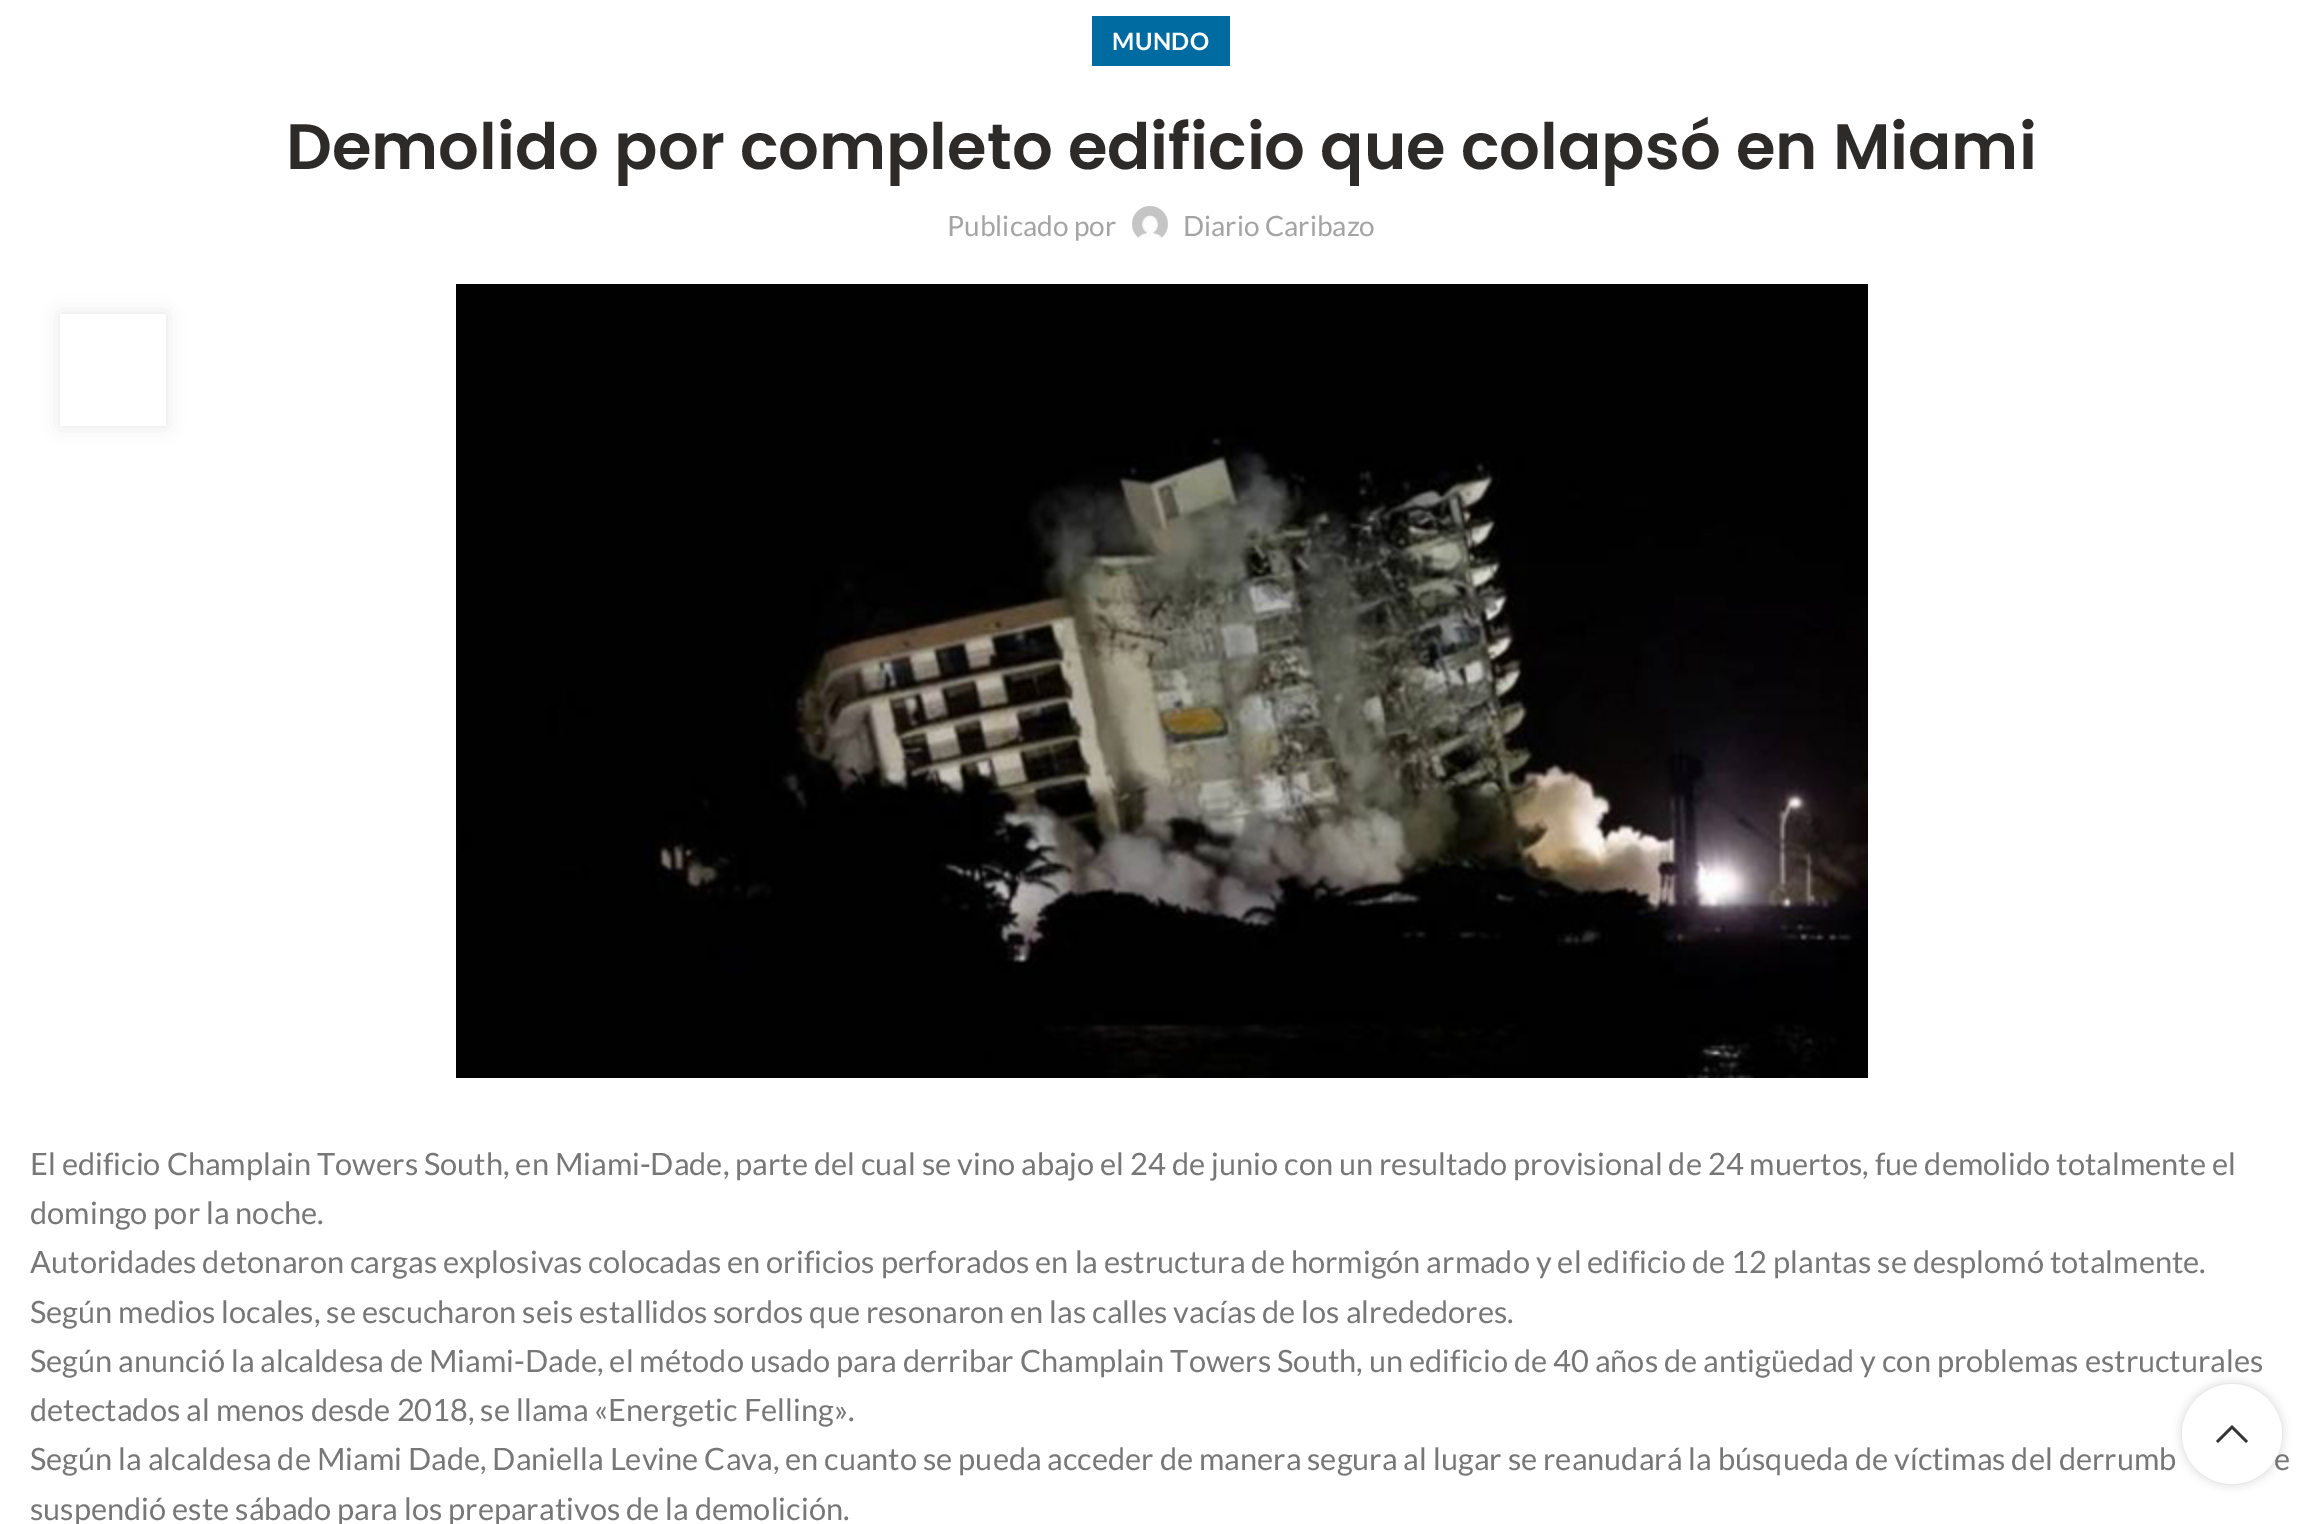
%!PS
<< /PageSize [2321 1524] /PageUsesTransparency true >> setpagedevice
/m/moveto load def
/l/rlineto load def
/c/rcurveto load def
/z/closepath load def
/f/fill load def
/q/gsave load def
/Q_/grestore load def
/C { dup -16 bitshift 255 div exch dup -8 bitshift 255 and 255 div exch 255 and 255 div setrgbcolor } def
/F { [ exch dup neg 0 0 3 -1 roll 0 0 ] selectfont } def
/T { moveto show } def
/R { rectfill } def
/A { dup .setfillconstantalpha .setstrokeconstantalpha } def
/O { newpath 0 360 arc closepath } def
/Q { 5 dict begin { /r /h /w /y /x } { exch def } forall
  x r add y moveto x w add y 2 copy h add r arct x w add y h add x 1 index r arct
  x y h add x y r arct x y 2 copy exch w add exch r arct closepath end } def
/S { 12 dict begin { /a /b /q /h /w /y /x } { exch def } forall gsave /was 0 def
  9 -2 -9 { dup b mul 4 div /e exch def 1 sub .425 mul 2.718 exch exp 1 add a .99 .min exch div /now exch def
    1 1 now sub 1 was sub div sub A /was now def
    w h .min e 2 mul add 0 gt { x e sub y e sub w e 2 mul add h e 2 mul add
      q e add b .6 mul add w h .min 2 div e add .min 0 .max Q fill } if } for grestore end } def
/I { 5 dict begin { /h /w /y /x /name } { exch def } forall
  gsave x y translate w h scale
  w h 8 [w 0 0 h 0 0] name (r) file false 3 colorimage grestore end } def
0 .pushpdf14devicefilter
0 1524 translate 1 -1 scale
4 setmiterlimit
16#FFFFFF C
0 0 2321 1524 R
16#006BA1 C
1092 16 138 50 R
/Lato-Bold 24 F
16#FFFFFF C
1112 50 m .5 0 (MUNDO) ashow
/Poppins-SemiBold 64 F
16#2D2A2A C
(Demolido por completo edificio que colapsó en Miami) 286 169 T
/Lato-Regular 28 F
16#A4A4A4 C
(Publicado por) 947 236 T
(1.rgb) 1132 206 36 33 I
(Diario Caribazo) 1183 236 T
q
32 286 m 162 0 l 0 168 l -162 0 l z 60 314 m 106 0 l 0 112 l -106 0 l z eoclip newpath
16#000000 C
60 314 106 112 0 9 .1 S
Q_
(2.rgb) 456 284 1412 794 I
/Lato-Regular 30.8 F
16#777777 C
(El edificio Champlain Towers South, en Miami-Dade, parte del cual se vino abajo el 24 de junio con un resultado provisional de 24 muertos, fue demolido totalmente el) 30 1175 T
(domingo por la noche.) 30 1224 T
(Autoridades detonaron cargas explosivas colocadas en orificios perforados en la estructura de hormigón armado y el edificio de 12 plantas se desplomó totalmente.) 30 1273 T
(Según medios locales, se escucharon seis estallidos sordos que resonaron en las calles vacías de los alrededores.) 30 1323 T
(Según anunció la alcaldesa de Miami-Dade, el método usado para derribar Champlain Towers South, un edificio de 40 años de antigüedad y con problemas estructurales) 30 1372 T
(detectados al menos desde 2018, se llama «Energetic Felling».) 30 1421 T
(Según la alcaldesa de Miami Dade, Daniella Levine Cava, en cuanto se pueda acceder de manera segura al lugar se reanudará la búsqueda de víctimas del derrumb) 30 1470 T
(e) 2274 1470 T
(suspendió este sábado para los preparativos de la demolición.) 30 1520 T
q
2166 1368 m 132 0 l 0 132 l -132 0 l z 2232 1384 m 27.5 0 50 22.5 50 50 c 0 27.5 -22.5 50 -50 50 c -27.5 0 -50 -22.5 -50 -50 c 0 -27.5 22.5 -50 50 -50 c z eoclip newpath
16#000000 C
2182 1384 100 100 50 5 .17 S
Q_
0.9 A
16#FFFFFF C
2232 1434 50 O f
1 A
16#333333 C
2232 1425 m 16 16 l -2 2 l -14 -14 l -14 14 l -2 -2 l z f
.poppdf14devicefilter showpage
